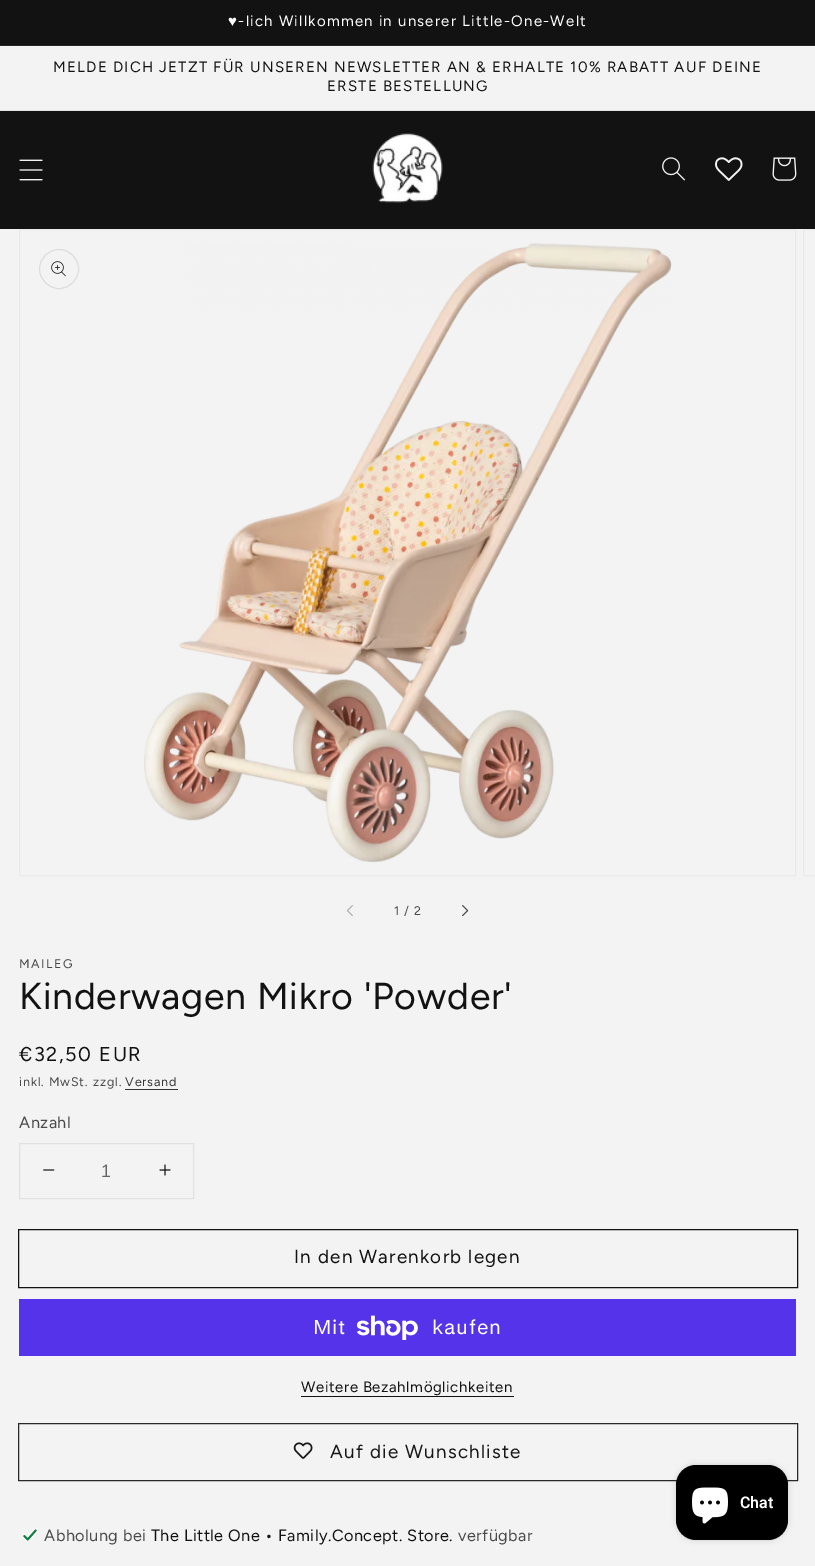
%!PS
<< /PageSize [815 1566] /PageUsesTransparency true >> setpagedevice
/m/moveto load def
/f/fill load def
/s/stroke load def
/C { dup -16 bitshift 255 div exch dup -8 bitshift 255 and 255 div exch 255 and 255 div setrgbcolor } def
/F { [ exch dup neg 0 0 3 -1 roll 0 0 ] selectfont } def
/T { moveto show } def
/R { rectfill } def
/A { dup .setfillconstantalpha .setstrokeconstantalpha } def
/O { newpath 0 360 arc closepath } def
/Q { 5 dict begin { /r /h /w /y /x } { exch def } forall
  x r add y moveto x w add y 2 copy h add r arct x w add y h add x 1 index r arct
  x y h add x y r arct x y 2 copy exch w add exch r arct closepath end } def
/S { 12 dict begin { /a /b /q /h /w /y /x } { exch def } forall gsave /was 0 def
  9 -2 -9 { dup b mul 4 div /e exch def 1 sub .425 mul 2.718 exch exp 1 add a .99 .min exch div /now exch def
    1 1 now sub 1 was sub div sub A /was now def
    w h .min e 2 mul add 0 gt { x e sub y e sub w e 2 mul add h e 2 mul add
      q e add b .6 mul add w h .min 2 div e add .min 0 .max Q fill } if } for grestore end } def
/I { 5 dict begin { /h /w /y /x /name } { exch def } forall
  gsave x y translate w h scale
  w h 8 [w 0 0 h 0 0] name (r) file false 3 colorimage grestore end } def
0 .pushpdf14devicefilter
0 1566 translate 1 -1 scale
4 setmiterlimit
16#F3F3F3 C
0 0 815 1566 R
16#121212 C
0 0 815 45 R
16#252525 C
0 45 815 1 R
/LiberationSans-Regular 15 F
16#FFFFFF C
228 26 m 1.25 0 (♥) ashow
/Figtree-Regular 15 F
238 26 m 1.25 0 (-lich Willkommen in unserer Little-One-Welt) ashow
16#E1E1E1 C
0 110 815 1 R
16#121212 C
53 72 m 1.25 0 (MELDE DICH JETZT FÜR UNSEREN NEWSLETTER AN & ERHALTE 10% RABATT AUF DEINE) ashow
327 91 m 1.25 0 (ERSTE BESTELLUNG) ashow
0 111 815 118 R
(1.rgb) 19 159 24 22 I
(2.rgb) 372 133 71 70 I
(3.rgb) 662 157 23 24 I
(4.rgb) 715 157 28 24 I
(5.rgb) 772 157 25 24 I
16#EAEAEA C
19.5 229.5 776 646 rectstroke
16#DDDDDD C
59 269 19.5 O s
(6.rgb) 51 261 15 16 I
(7.rgb) 144 243 528 620 I
16#EAEAEA C
803.5 229.5 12 646 rectstroke
(8.rgb) 346 905 7 12 I
/Figtree-Regular 12.5 F
16#4A4A4A C
394 915 m .9 0 (1 / 2) ashow
(9.rgb) 462 905 7 12 I
19 968 m 1.6 0 (MAILEG) ashow
/Figtree-Regular 37.5 F
16#121212 C
19 1009 m .75 0 (Kinderwagen Mikro 'Powder') ashow
/Figtree-Regular 20 F
19 1061 m 1.6 0 (€32,50 EUR) ashow
/Figtree-Regular 12.5 F
16#4A4A4A C
19 1086 m .9 0 (inkl. MwSt. zzgl.) ashow
16#343434 C
125 1086 m .9 0 (Versand) ashow
125 1089 53 1 R
/Figtree-Regular 16.25 F
16#4A4A4A C
19 1128 m .5 0 (Anzahl) ashow
16#E1E1E1 C
19.5 1143.5 174 55 rectstroke
(10.rgb) 43 1169 12 2 I
/LiberationSans-Regular 18 F
16#646464 C
(1) 101 1177 T
(11.rgb) 159 1164 12 12 I
16#121212 C
18.5 1229.5 779 58 rectstroke
/Figtree-Regular 18.75 F
294 1263 m 1.25 0 (In den Warenkorb legen) ashow
16#5433EB C
19 1299 777 57 R
/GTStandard-Regular 20 F
16#FFFFFF C
313 1334 m .75 0 (Mit) ashow
(12.rgb) 356 1315 62 25 I
432 1334 m .75 0 (kaufen) ashow
/Figtree-Regular 15 F
16#121212 C
301 1392 m .6 0 (Weitere Bezahlmöglichkeiten) ashow
301 1396 213 1 R
16#292929 C
18.5 1423.5 779 57 rectstroke
(13.rgb) 293 1442 20 17 I
/Figtree-Regular 18.75 F
16#181818 C
330 1458 m 1.25 0 (Auf die Wunschliste) ashow
(14.rgb) 22 1528 16 14 I
/Figtree-Regular 16.25 F
16#4A4A4A C
44 1541 m .5 0 (Abholung bei) ashow
16#121212 C
151 1541 m .5 0 (The Little One • Family.Concept. Store.) ashow
16#4A4A4A C
458 1541 m .5 0 (verfügbar) ashow
16#000000 C
676 1465 112 75 20 3 .15 S
676 1465 112 75 20 Q f
(15.rgb) 692 1487 36 37 I
/Roboto-SemiBold 16 F
16#FFFFFF C
(Chat) 740 1508 T
.poppdf14devicefilter showpage
